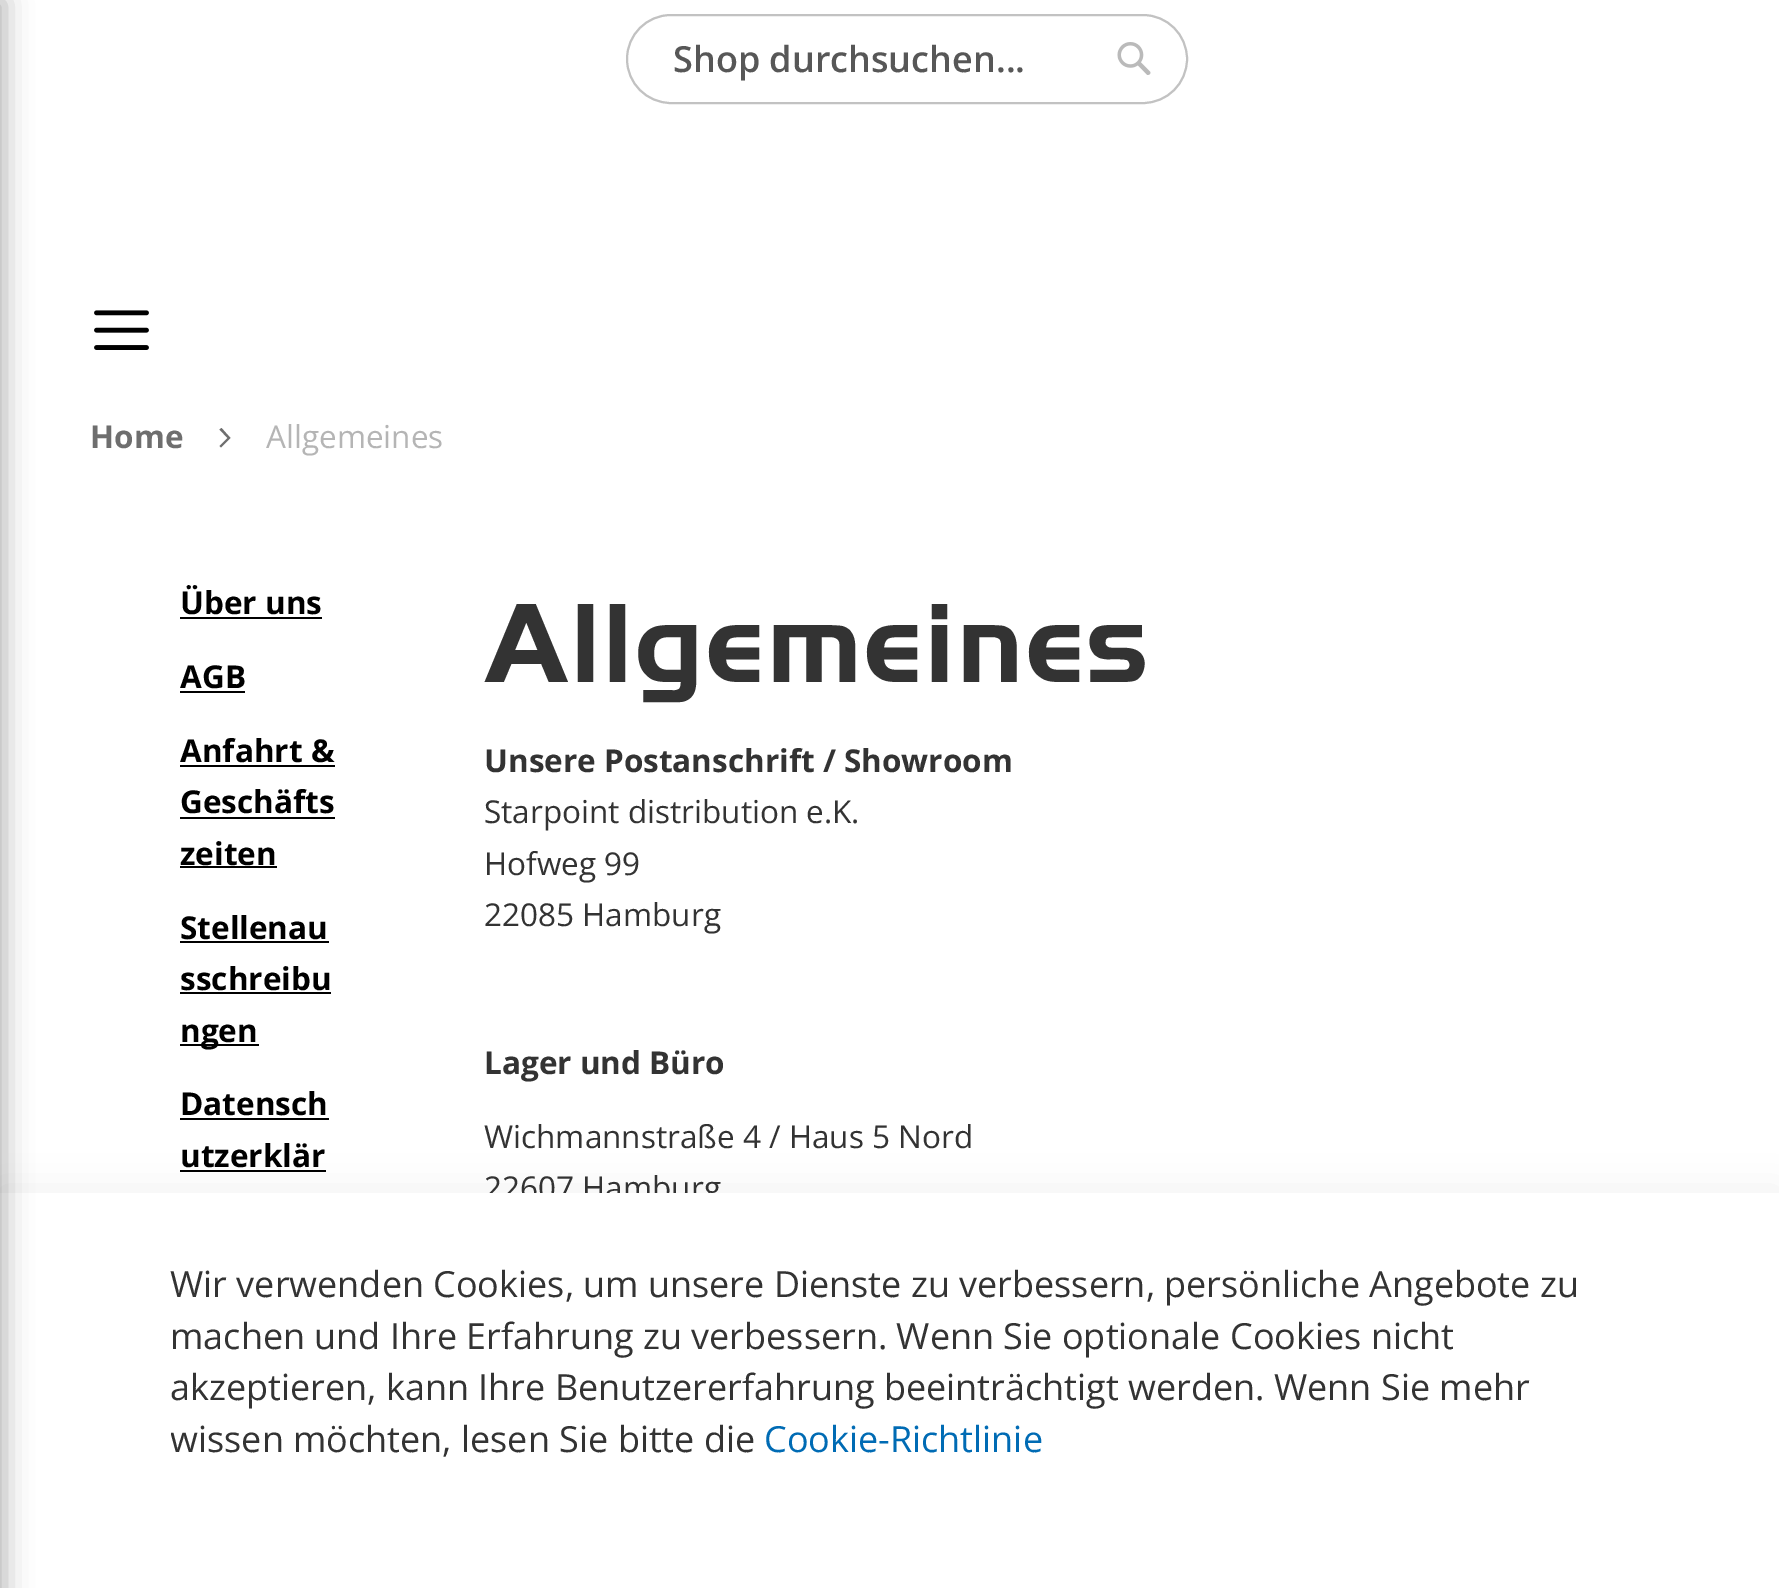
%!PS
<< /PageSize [1779 1588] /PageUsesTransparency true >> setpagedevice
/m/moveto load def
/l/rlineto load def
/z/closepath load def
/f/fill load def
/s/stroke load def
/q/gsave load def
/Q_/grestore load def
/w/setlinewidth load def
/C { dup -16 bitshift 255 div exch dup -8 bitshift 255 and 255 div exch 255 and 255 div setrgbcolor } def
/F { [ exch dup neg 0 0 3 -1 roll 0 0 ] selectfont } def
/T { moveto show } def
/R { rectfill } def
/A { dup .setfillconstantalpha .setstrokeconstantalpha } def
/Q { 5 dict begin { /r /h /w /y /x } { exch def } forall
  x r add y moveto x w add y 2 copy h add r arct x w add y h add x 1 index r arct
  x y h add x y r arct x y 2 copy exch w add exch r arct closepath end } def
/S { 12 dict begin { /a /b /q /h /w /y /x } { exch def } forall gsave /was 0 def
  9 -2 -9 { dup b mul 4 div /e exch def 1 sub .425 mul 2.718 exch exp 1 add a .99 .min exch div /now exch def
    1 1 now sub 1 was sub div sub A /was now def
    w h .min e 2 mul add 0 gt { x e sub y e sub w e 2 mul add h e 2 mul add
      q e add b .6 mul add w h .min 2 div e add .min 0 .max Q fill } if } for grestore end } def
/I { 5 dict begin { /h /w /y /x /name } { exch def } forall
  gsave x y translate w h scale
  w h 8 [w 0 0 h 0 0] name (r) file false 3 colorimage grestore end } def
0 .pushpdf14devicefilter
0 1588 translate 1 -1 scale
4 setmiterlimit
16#FFFFFF C
0 0 1779 1588 R
/OpenSans-Regular 31.5 F
16#333333 C
(22607 Hamburg) 484 1199 T
16#000000 C
180 1170 146 2 R
0 1188 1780 396 0 20 .06 S
16#FFFFFF C
0 1193 1779 395 R
16#000000 C
-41 0 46 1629 0 13.5 .3 S
16#C2C2C2 C
2 w
627 15 560 88 44 Q s
/OpenSans-SemiBold 36 F
16#575757 C
(Shop durchsuchen...) 673 72 T
(1.rgb) 1117 42 34 33 I
(2.rgb) 94 310 55 40 I
/OpenSans-Bold 31.5 F
16#6E6E6E C
(Home) 90 448 T
230.5 438 m -9 -10 l -2 1.5 l 8 8.5 l -8 8 l 1.5 1.5 l z f
/OpenSans-Regular 31.5 F
16#B5B5B5 C
(Allgemeines) 266 448 T
/OpenSans-Bold 31.5 F
16#000000 C
(Über uns) 180 614 T
180 617 142 2 R
(AGB) 180 688 T
180 691 65 2 R
(Anfahrt &) 180 762 T
180 765 155 2 R
(Geschäfts) 180 813 T
180 817 155 2 R
(zeiten) 180 865 T
180 866 97 2 R
(Stellenau) 180 939 T
180 941 149 2 R
(sschreibu) 180 990 T
180 992 151 2 R
180 1044 79 2 R
(ngen) 180 1042 T
(Datensch) 180 1115 T
180 1118 149 2 R
(utzerklär) 180 1167 T
/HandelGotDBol-Bold 117 F
16#333333 C
484 682 m 1.1 0 (Allgemeines) ashow
/OpenSans-Bold 31.5 F
(Unsere Postanschrift / Showroom) 484 772 T
/OpenSans-Regular 31.5 F
(Starpoint distribution e.K.) 484 823 T
(Hofweg 99) 484 875 T
(22085 Hamburg) 484 926 T
/OpenSans-Bold 31.5 F
(Lager und Büro) 484 1074 T
/OpenSans-Regular 31.5 F
(Wichmannstraße 4 / Haus 5 Nord) 484 1148 T
/OpenSans-Regular 36 F
(Wir verwenden Cookies, um unsere Dienste zu verbessern, persönliche Angebote zu) 170 1297 T
(machen und Ihre Erfahrung zu verbessern. Wenn Sie optionale Cookies nicht) 170 1349 T
(akzeptieren, kann Ihre Benutzererfahrung beeinträchtigt werden. Wenn Sie mehr) 170 1400 T
q
171 1260 1440 205 rectclip
(wissen möchten, lesen Sie bitte die) 170 1452 T
Q_
16#006BB4 C
(Cookie-Richtlinie) 764 1452 T
.poppdf14devicefilter showpage
